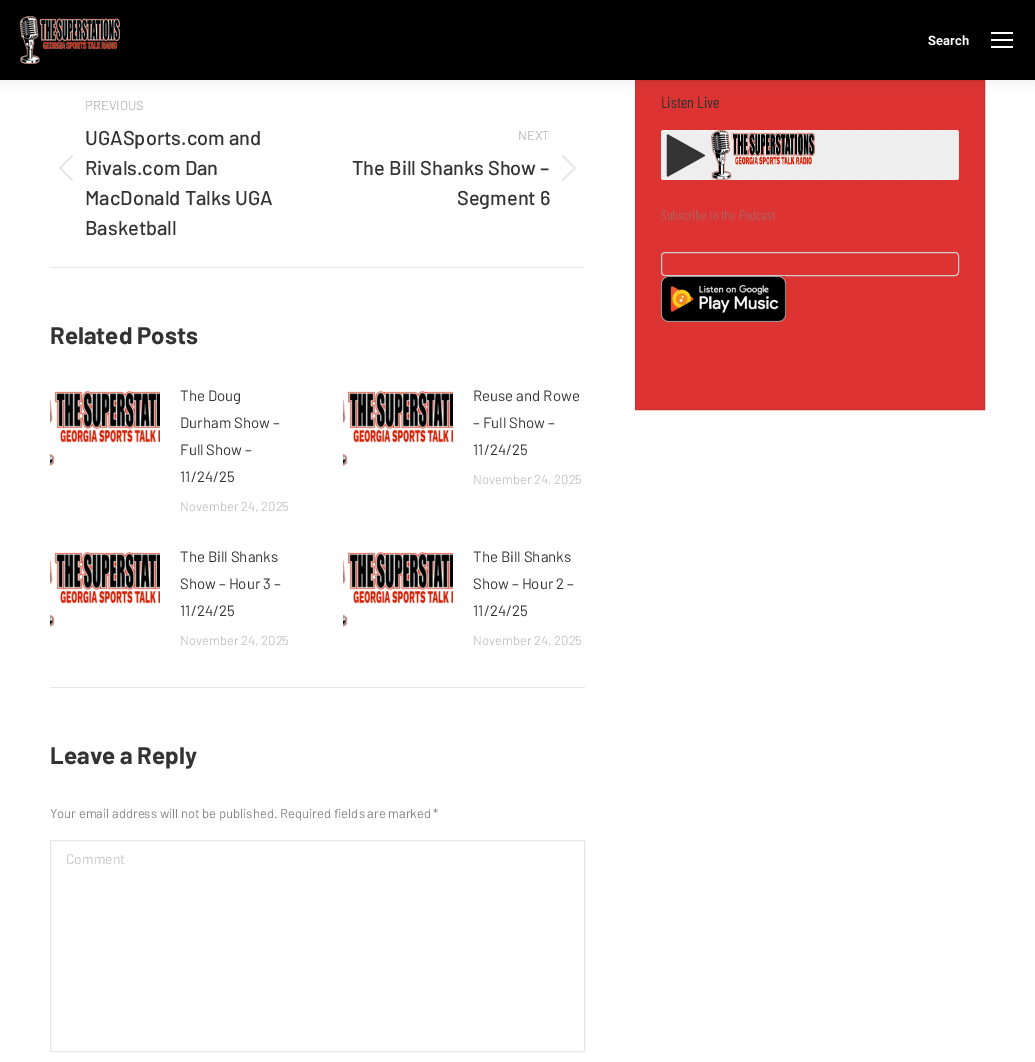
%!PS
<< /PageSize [1035 1062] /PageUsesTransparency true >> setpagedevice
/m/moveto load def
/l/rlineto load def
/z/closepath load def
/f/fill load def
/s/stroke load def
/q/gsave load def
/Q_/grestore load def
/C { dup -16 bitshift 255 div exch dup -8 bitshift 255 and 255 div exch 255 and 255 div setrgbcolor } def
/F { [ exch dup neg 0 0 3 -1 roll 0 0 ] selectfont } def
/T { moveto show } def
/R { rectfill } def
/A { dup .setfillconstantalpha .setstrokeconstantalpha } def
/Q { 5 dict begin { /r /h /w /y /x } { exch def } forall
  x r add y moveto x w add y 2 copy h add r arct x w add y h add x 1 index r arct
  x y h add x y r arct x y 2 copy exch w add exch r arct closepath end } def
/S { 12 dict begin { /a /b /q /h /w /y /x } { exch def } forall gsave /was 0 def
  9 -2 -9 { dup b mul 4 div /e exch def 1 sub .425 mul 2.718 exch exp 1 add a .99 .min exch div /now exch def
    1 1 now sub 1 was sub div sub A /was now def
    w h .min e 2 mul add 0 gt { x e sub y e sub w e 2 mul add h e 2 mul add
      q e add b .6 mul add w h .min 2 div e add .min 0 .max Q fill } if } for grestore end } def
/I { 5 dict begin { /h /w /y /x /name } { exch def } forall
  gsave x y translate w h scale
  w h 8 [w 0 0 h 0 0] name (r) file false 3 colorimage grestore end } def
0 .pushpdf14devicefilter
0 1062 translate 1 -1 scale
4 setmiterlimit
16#FFFFFF C
0 0 1035 1062 R
16#DD3333 C
635.5 80.5 m 349 0 l 0 329 l -349 0 l z q f Q_
16#D03030 C
s
16#000000 C
-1 -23 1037 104 0 7.5 .07 S
0 0 1035 80 R
(1.rgb) 20 16 100 48 I
/Roboto-Bold 13 F
16#FFFFFF C
(Search) 928 45 T
991 32 22 2 R
991 39 22 2 R
991 46 22 2 R
16#E7E7E7 C
50 267 535 1 R
/Barlow-Regular 13 F
16#B4B5BB C
(PREVIOUS) 85 110 T
(2.rgb) 59 155 14 26 I
/Barlow-Medium 20 F
16#333333 C
(UGASports.com and) 85 145 T
(Rivals.com Dan) 85 175 T
(MacDonald Talks UGA) 85 205 T
(Basketball) 85 235 T
/Barlow-Regular 13 F
16#B4B5BB C
(NEXT) 518 140 T
/Barlow-Medium 20 F
16#333333 C
(The Bill Shanks Show –) 352 175 T
(Segment 6) 457 205 T
(3.rgb) 562 155 14 26 I
16#E7E7E7 C
50 687 535 1 R
/Barlow-Bold 24 F
16#333333 C
(Related Posts) 50 344 T
(4.rgb) 50 391 110 75 I
/Barlow-Regular 15 F
(The Doug) 180 401 T
(Durham Show –) 180 428 T
(Full Show –) 180 455 T
(11/24/25) 180 482 T
/Barlow-Regular 13 F
16#C4C5C9 C
(November 24, 2025) 180 511 T
(4.rgb) 343 391 110 75 I
/Barlow-Regular 15 F
16#333333 C
(Reuse and Rowe) 473 401 T
(– Full Show –) 473 428 T
(11/24/25) 473 455 T
/Barlow-Regular 13 F
16#C4C5C9 C
(November 24, 2025) 473 484 T
(4.rgb) 50 552 110 75 I
/Barlow-Regular 15 F
16#333333 C
(The Bill Shanks) 180 562 T
(Show – Hour 3 –) 180 589 T
(11/24/25) 180 616 T
/Barlow-Regular 13 F
16#C4C5C9 C
(November 24, 2025) 180 645 T
(4.rgb) 343 552 110 75 I
/Barlow-Regular 15 F
16#333333 C
(The Bill Shanks) 473 562 T
(Show – Hour 2 –) 473 589 T
(11/24/25) 473 616 T
/Barlow-Regular 13 F
16#C4C5C9 C
(November 24, 2025) 473 645 T
/Barlow-Bold 24 F
16#333333 C
(Leave a Reply) 50 764 T
/Barlow-Regular 13 F
16#85868C C
(Your email address will not be published. Required fields are marked *) 50 818 T
16#E5E5E5 C
50.5 840.5 534 211 .5 Q s
/Barlow-Regular 14 F
16#C4C5C9 C
(Comment) 66 864 T
/BarlowCondensed-Regular 16 F
16#333333 C
(Listen Live) 661 108 T
(5.rgb) 661 130 298 50 I
/BarlowCondensed-Thin 14 F
16#85868C C
(Subscribe to the Podcast) 661 220 T
16#CCCCCC C
661.5 252.5 297 23 3.5 Q s
(6.rgb) 661 276 125 46 I
.poppdf14devicefilter showpage
